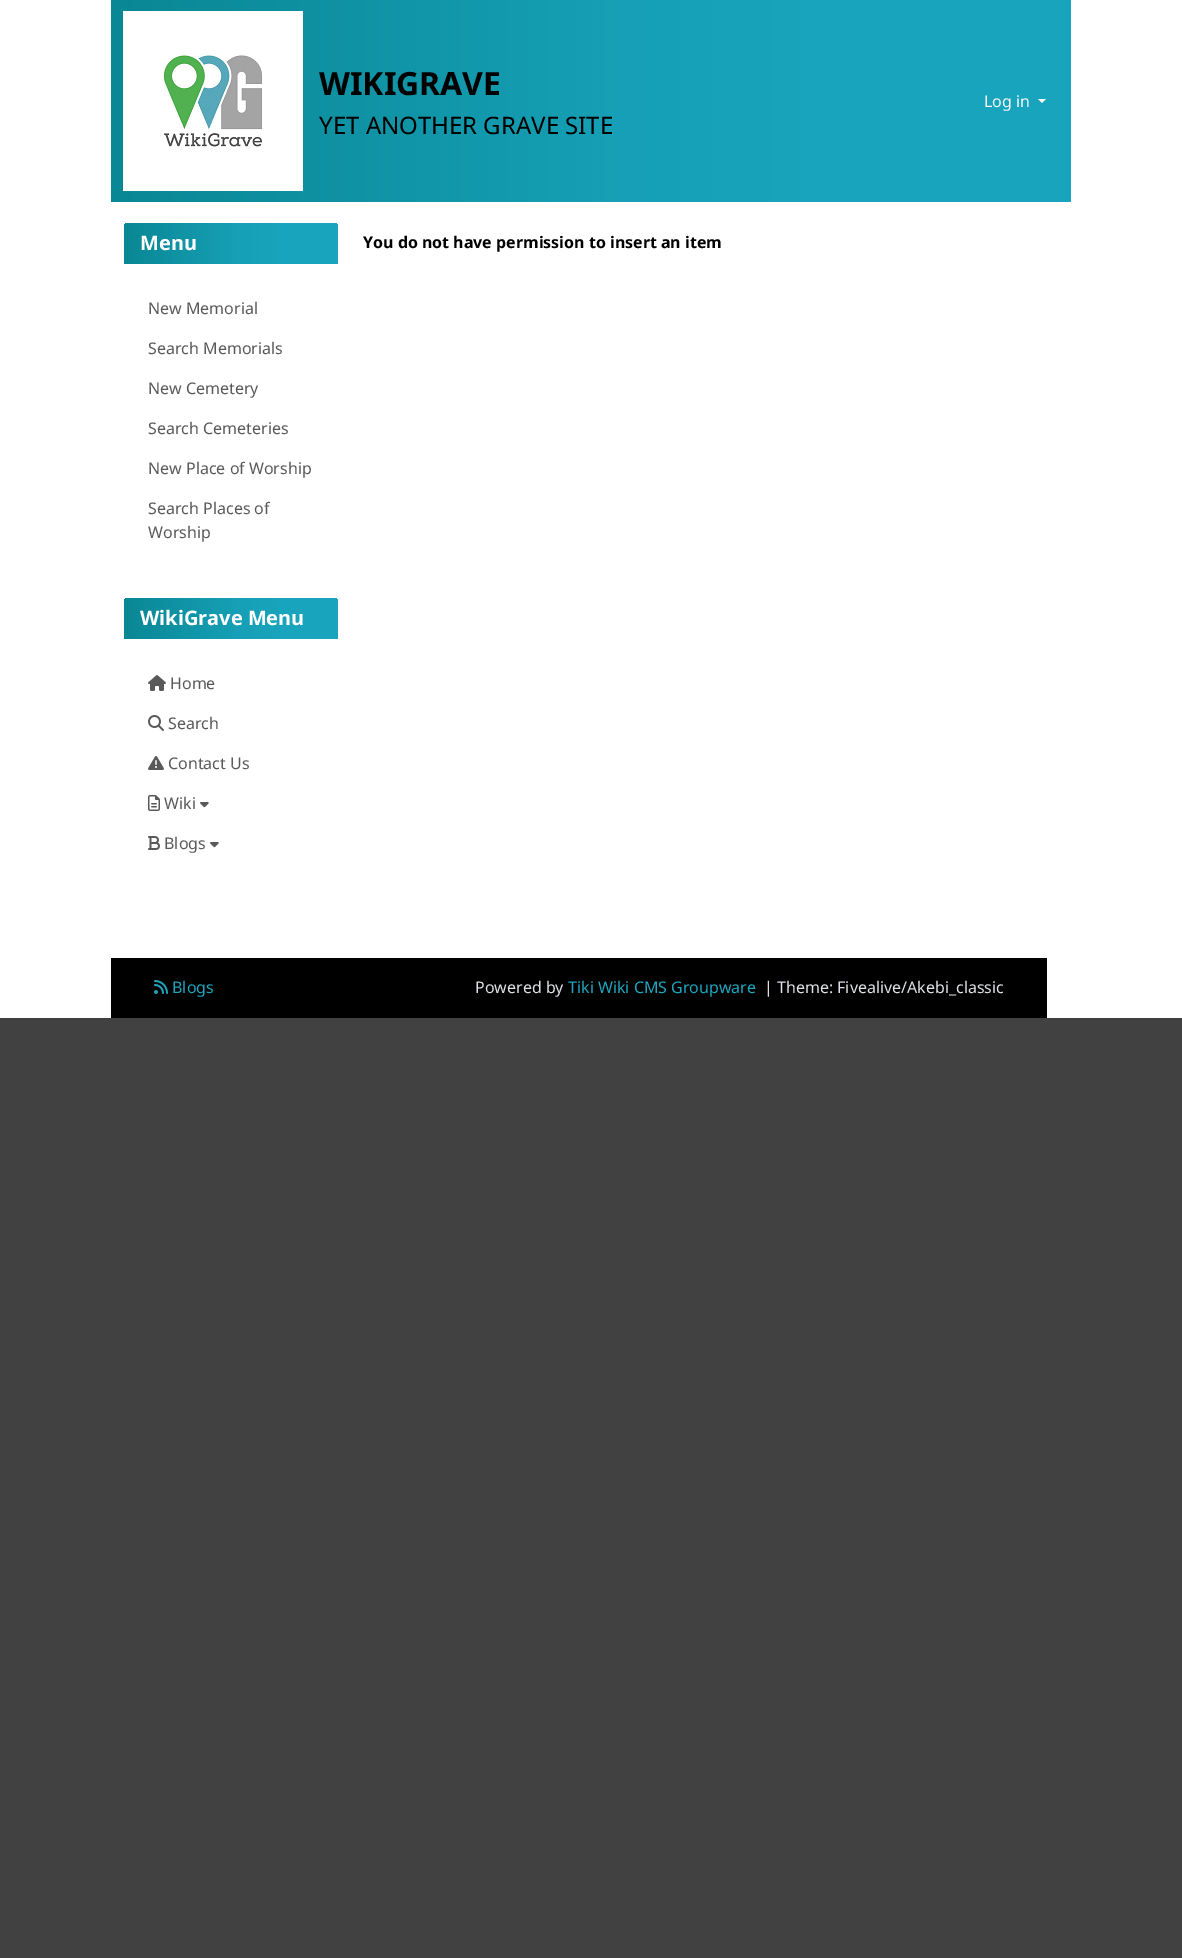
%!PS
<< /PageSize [1182 1958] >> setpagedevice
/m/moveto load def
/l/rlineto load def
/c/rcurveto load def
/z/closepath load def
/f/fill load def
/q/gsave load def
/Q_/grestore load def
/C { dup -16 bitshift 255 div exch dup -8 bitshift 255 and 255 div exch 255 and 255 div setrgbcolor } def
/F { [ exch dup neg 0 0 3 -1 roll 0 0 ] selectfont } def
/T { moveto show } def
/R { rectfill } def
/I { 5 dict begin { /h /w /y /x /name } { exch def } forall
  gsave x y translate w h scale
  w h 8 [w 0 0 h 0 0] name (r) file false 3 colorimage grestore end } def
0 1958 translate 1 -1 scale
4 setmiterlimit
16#414141 C
0 0 1182 1958 R
16#FFFFFF C
0 0 1182 1018 R
q 111 0 m 960 0 l 0 202 l -960 0 l z clip newpath
<< /ShadingType 2 /ColorSpace /DeviceRGB /Coords [111 101 1071 101] /Extend [true true] /Function << /FunctionType 3 /Domain [0 1] /Functions [<< /FunctionType 2 /Domain [0 1] /C0 [.039 .529 .58] /C1 [.086 .624 .714] /N 1 >> << /FunctionType 2 /Domain [0 1] /C0 [.086 .624 .714] /C1 [.094 .643 .737] /N 1 >> << /FunctionType 2 /Domain [0 1] /C0 [.094 .643 .737] /C1 [.098 .647 .741] /N 1 >>] /Bounds [.53 .72] /Encode [0 1 0 1 0 1] >> >> shfill Q_
(1.rgb) 123 11 180 180 I
/NotoSans-Bold 32 F
16#000000 C
(WIKIGRAVE) 319 95 T
/NotoSans-Regular 24 F
(YET ANOTHER GRAVE SITE) 319 134 T
/NotoSans-Regular 16 F
16#F9F9F9 C
(Log in) 984 107 T
1038 99 m 8 0 l -4 4 l z f
q 129 223 m 204 0 l 3 0 5 2 5 5 c 0 36 l -214 0 l 0 -36 l 0 -3 2 -5 5 -5 c z clip newpath
<< /ShadingType 2 /ColorSpace /DeviceRGB /Coords [124 243 338 243] /Extend [true true] /Function << /FunctionType 3 /Domain [0 1] /Functions [<< /FunctionType 2 /Domain [0 1] /C0 [.039 .529 .58] /C1 [.086 .624 .714] /N 1 >> << /FunctionType 2 /Domain [0 1] /C0 [.086 .624 .714] /C1 [.094 .643 .737] /N 1 >> << /FunctionType 2 /Domain [0 1] /C0 [.094 .643 .737] /C1 [.098 .647 .741] /N 1 >>] /Bounds [.53 .72] /Encode [0 1 0 1 0 1] >> >> shfill Q_
/NotoSans-Bold 20 F
16#FFFFFF C
(Menu) 140 250 T
/NotoSans-Regular 16 F
16#595959 C
(New Memorial) 148 314 T
(Search Memorials) 148 354 T
(New Cemetery) 148 394 T
(Search Cemeteries) 148 434 T
(New Place of Worship) 148 474 T
(Search Places of) 148 514 T
(Worship) 148 538 T
q 129 598 m 204 0 l 3 0 5 2 5 5 c 0 36 l -214 0 l 0 -36 l 0 -3 2 -5 5 -5 c z clip newpath
<< /ShadingType 2 /ColorSpace /DeviceRGB /Coords [124 618 338 618] /Extend [true true] /Function << /FunctionType 3 /Domain [0 1] /Functions [<< /FunctionType 2 /Domain [0 1] /C0 [.039 .529 .58] /C1 [.086 .624 .714] /N 1 >> << /FunctionType 2 /Domain [0 1] /C0 [.086 .624 .714] /C1 [.094 .643 .737] /N 1 >> << /FunctionType 2 /Domain [0 1] /C0 [.094 .643 .737] /C1 [.098 .647 .741] /N 1 >>] /Bounds [.53 .72] /Encode [0 1 0 1 0 1] >> >> shfill Q_
/NotoSans-Bold 20 F
16#FFFFFF C
(WikiGrave Menu) 140 625 T
(2.rgb) 148 675 18 16 I
/NotoSans-Regular 16 F
16#595959 C
(Home) 170 689 T
(3.rgb) 148 715 16 16 I
(Search) 168 729 T
(4.rgb) 148 756 16 14 I
(Contact Us) 168 769 T
(5.rgb) 148 795 12 16 I
(Wiki) 164 809 T
(6.rgb) 200 802 9 6 I
(7.rgb) 148 836 12 14 I
(Blogs) 164 849 T
(6.rgb) 210 842 9 6 I
/NotoSans-Bold 16 F
16#000000 C
(You do not have permission to insert an item) 363 248 T
111 958 936 60 R
(8.rgb) 154 980 14 14 I
/NotoSans-Regular 16 F
16#1EA6BE C
(Blogs) 172 993 T
16#DEE2E6 C
(Powered by) 475 993 T
16#1EA6BE C
(Tiki Wiki CMS Groupware) 568 993 T
16#DEE2E6 C
(| Theme: Fivealive/Akebi_classic) 764 993 T
showpage
